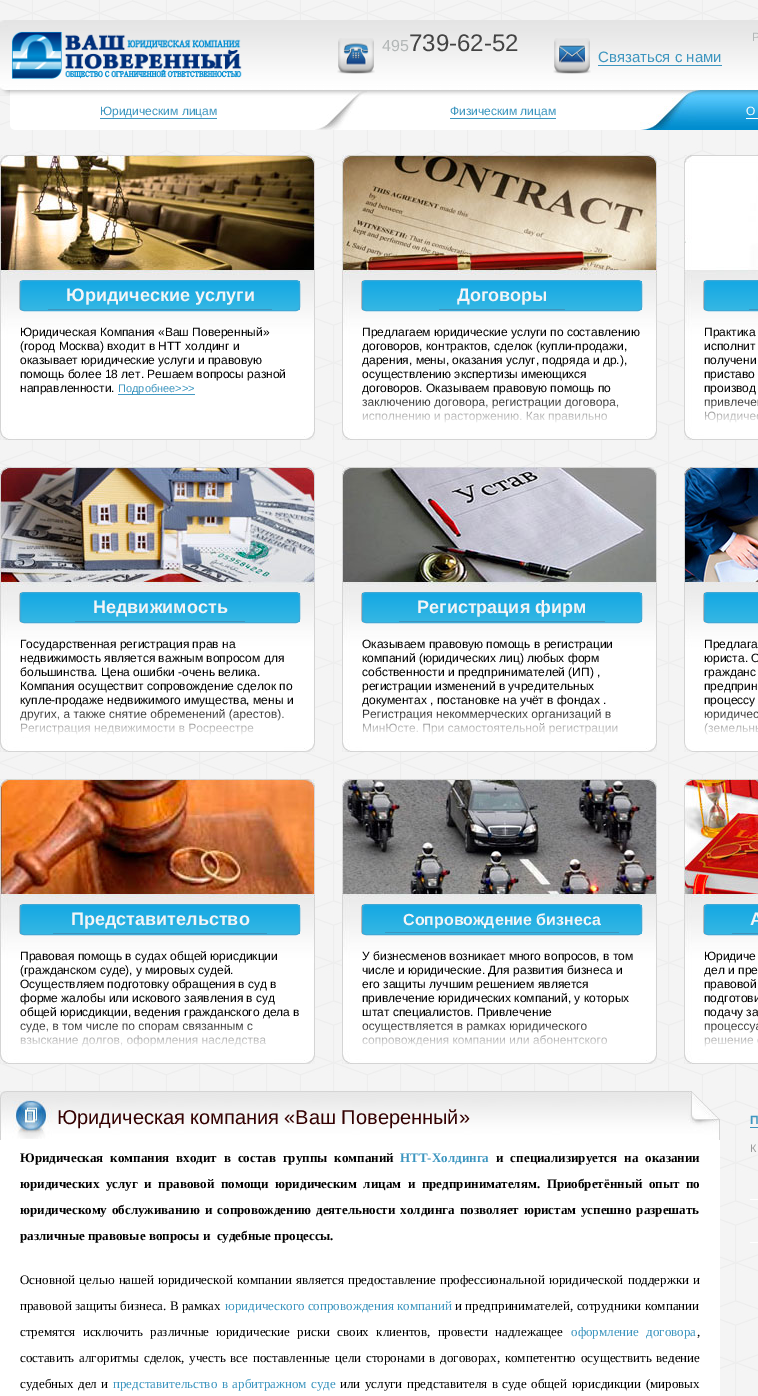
%!PS
<< /PageSize [758 1396] >> setpagedevice
/m/moveto load def
/l/rlineto load def
/c/rcurveto load def
/z/closepath load def
/f/fill load def
/s/stroke load def
/q/gsave load def
/Q_/grestore load def
/C { dup -16 bitshift 255 div exch dup -8 bitshift 255 and 255 div exch 255 and 255 div setrgbcolor } def
/F { [ exch dup neg 0 0 3 -1 roll 0 0 ] selectfont } def
/T { moveto show } def
/R { rectfill } def
/Q { 5 dict begin { /r /h /w /y /x } { exch def } forall
  x r add y moveto x w add y 2 copy h add r arct x w add y h add x 1 index r arct
  x y h add x y r arct x y 2 copy exch w add exch r arct closepath end } def
/I { 5 dict begin { /h /w /y /x /name } { exch def } forall
  gsave x y translate w h scale
  w h 8 [w 0 0 h 0 0] name (r) file false 3 colorimage grestore end } def
0 1396 translate 1 -1 scale
4 setmiterlimit
16#FFFFFF C
0 0 758 1396 R
(1.rgb) 0 0 758 1396 I
(2.rgb) 0 20 758 76 I
(3.rgb) 0 20 9 75 I
(4.rgb) 11 31 231 48 I
(5.rgb) 337 38 38 36 I
/LiberationSans-Regular 16 F
16#B3B7B7 C
(495) 382 51 T
/LiberationSans-Regular 24 F
16#434343 C
(739-62-52) 409 51 T
(6.rgb) 553 38 38 36 I
/LiberationSans-Regular 15 F
16#3C95BF C
(Связаться с нами) 598 62 T
598 65 124 1 R
/LiberationSans-Regular 12 F
16#B3B7B7 C
(Р) 752 41 T
(7.rgb) 10 90 630 40 I
(8.rgb) 315 91 52 39 I
16#3C95BF C
(Юридическим лицам) 100 115 T
100 118 117 1 R
(9.rgb) 640 90 60 40 I
(Физическим лицам) 450 115 T
450 118 106 1 R
(10.rgb) 700 90 58 40 I
16#FFFFFF C
(О) 746 115 T
746 118 12 1 R
(11.rgb) 0 155 315 285 I
16#BABABA C
23 280 m -2 0 -4 2 -4 4 c 0 23 l 0 2 2 4 4 4 c 1 0 l -2 0 -4 -2 -4 -4 c 0 -23 l 0 -2 2 -4 4 -4 c z f
q
20 280 280 31 4 Q clip newpath
q 20 281 m 280 0 l 0 29 l -280 0 l z clip newpath
<< /ShadingType 2 /ColorSpace /DeviceRGB /Coords [160 281 160 310] /Extend [true true] /Function << /FunctionType 2 /Domain [0 1] /C0 [.078 .659 .89] /C1 [.208 .718 .89] /N 1 >> >> shfill Q_
Q_
16#3EA8D6 C
20.5 280.5 279 30 3.5 Q s
/LiberationSans-Bold 18 F
16#F4F5F7 C
(Юридические услуги) 66 301 T
16#3C95BF C
48 309 224 1 R
/LiberationSans-Regular 12 F
16#000000 C
(Юридическая Компания «Ваш Поверенный») 20 336 T
(\(город Москва\) входит в НТТ холдинг и) 20 350 T
(оказывает юридические услуги и правовую) 20 364 T
(помощь более 18 лет. Решаем вопросы разной) 20 378 T
(направленности.) 20 392 T
/LiberationSans-Regular 11 F
16#3C95BF C
(Подробнее>>>) 118 392 T
16#4499C2 C
118 394 77 1 R
(12.rgb) 342 155 315 285 I
16#BABABA C
365 280 m -2 0 -4 2 -4 4 c 0 23 l 0 2 2 4 4 4 c 1 0 l -2 0 -4 -2 -4 -4 c 0 -23 l 0 -2 2 -4 4 -4 c z f
q
362 280 280 31 4 Q clip newpath
q 362 281 m 280 0 l 0 29 l -280 0 l z clip newpath
<< /ShadingType 2 /ColorSpace /DeviceRGB /Coords [502 281 502 310] /Extend [true true] /Function << /FunctionType 2 /Domain [0 1] /C0 [.078 .659 .89] /C1 [.208 .718 .89] /N 1 >> >> shfill Q_
Q_
16#3EA8D6 C
362.5 280.5 279 30 3.5 Q s
/LiberationSans-Bold 18 F
16#F4F5F7 C
(Договоры) 457 301 T
16#3C95BF C
439 309 126 1 R
/LiberationSans-Regular 12 F
16#000000 C
(Предлагаем юридические услуги по составлению) 362 336 T
(договоров, контрактов, сделок \(купли-продажи,) 362 350 T
(дарения, мены, оказания услуг, подряда и др.\),) 362 364 T
(осуществлению экспертизы имеющихся) 362 378 T
(договоров. Оказываем правовую помощь по) 362 392 T
(заключению договора, регистрации договора,) 362 406 T
(13.rgb) 362 399 257 38 I
(14.rgb) 684 155 74 285 I
16#BABABA C
707 280 m -2 0 -4 2 -4 4 c 0 23 l 0 2 2 4 4 4 c 1 0 l -2 0 -4 -2 -4 -4 c 0 -23 l 0 -2 2 -4 4 -4 c z f
q
704 280 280 31 4 Q clip newpath
q 704 281 m 54 0 l 0 29 l -54 0 l z clip newpath
<< /ShadingType 2 /ColorSpace /DeviceRGB /Coords [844 281 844 310] /Extend [true true] /Function << /FunctionType 2 /Domain [0 1] /C0 [.078 .659 .89] /C1 [.208 .718 .89] /N 1 >> >> shfill Q_
Q_
16#3EA8D6 C
704.5 280.5 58 30 3.5 Q s
16#3C95BF C
749 309 9 1 R
16#000000 C
(Практика) 704 336 T
(исполнит) 704 350 T
(получени) 704 364 T
(приставо) 704 378 T
(производ) 704 392 T
(привлече) 704 406 T
(15.rgb) 704 399 54 38 I
(16.rgb) 0 467 315 285 I
16#BABABA C
23 592 m -2 0 -4 2 -4 4 c 0 23 l 0 2 2 4 4 4 c 1 0 l -2 0 -4 -2 -4 -4 c 0 -23 l 0 -2 2 -4 4 -4 c z f
q
20 592 280 31 4 Q clip newpath
q 20 593 m 280 0 l 0 29 l -280 0 l z clip newpath
<< /ShadingType 2 /ColorSpace /DeviceRGB /Coords [160 593 160 622] /Extend [true true] /Function << /FunctionType 2 /Domain [0 1] /C0 [.078 .659 .89] /C1 [.208 .718 .89] /N 1 >> >> shfill Q_
Q_
16#3EA8D6 C
20.5 592.5 279 30 3.5 Q s
/LiberationSans-Bold 18 F
16#F4F5F7 C
(Недвижимость) 93 613 T
16#3C95BF C
75 621 170 1 R
/LiberationSans-Regular 12 F
16#000000 C
(Государственная регистрация прав на) 20 648 T
(недвижимость является важным вопросом для) 20 662 T
(большинства. Цена ошибки -очень велика.) 20 676 T
(Компания осуществит сопровождение сделок по) 20 690 T
(купле-продаже недвижимого имущества, мены и) 20 704 T
(других, а также снятие обременений \(арестов\).) 20 718 T
(17.rgb) 20 709 264 43 I
(18.rgb) 342 467 315 285 I
16#BABABA C
365 592 m -2 0 -4 2 -4 4 c 0 23 l 0 2 2 4 4 4 c 1 0 l -2 0 -4 -2 -4 -4 c 0 -23 l 0 -2 2 -4 4 -4 c z f
q
362 592 280 31 4 Q clip newpath
q 362 593 m 280 0 l 0 29 l -280 0 l z clip newpath
<< /ShadingType 2 /ColorSpace /DeviceRGB /Coords [502 593 502 622] /Extend [true true] /Function << /FunctionType 2 /Domain [0 1] /C0 [.078 .659 .89] /C1 [.208 .718 .89] /N 1 >> >> shfill Q_
Q_
16#3EA8D6 C
362.5 592.5 279 30 3.5 Q s
/LiberationSans-Bold 18 F
16#F4F5F7 C
(Регистрация фирм) 417 613 T
16#3C95BF C
399 621 206 1 R
/LiberationSans-Regular 12 F
16#000000 C
(Оказываем правовую помощь в регистрации) 362 648 T
(компаний \(юридических лиц\) любых форм) 362 662 T
(собственности и предпринимателей \(ИП\) ,) 362 676 T
(регистрации изменений в учредительных) 362 690 T
(документах , постановке на учёт в фондах .) 362 704 T
(Регистрация некоммерческих организаций в) 362 718 T
(19.rgb) 362 706 256 46 I
(20.rgb) 684 467 74 285 I
16#BABABA C
707 592 m -2 0 -4 2 -4 4 c 0 23 l 0 2 2 4 4 4 c 1 0 l -2 0 -4 -2 -4 -4 c 0 -23 l 0 -2 2 -4 4 -4 c z f
q
704 592 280 31 4 Q clip newpath
q 704 593 m 54 0 l 0 29 l -54 0 l z clip newpath
<< /ShadingType 2 /ColorSpace /DeviceRGB /Coords [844 593 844 622] /Extend [true true] /Function << /FunctionType 2 /Domain [0 1] /C0 [.078 .659 .89] /C1 [.208 .718 .89] /N 1 >> >> shfill Q_
Q_
16#3EA8D6 C
704.5 592.5 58 30 3.5 Q s
16#000000 C
(Предлага) 704 648 T
(юриста. О) 704 662 T
(гражданс) 704 676 T
(предприн) 704 690 T
(процессу) 704 704 T
(юридичес) 704 718 T
(21.rgb) 704 706 54 43 I
(22.rgb) 0 779 315 285 I
16#BABABA C
23 904 m -2 0 -4 2 -4 4 c 0 23 l 0 2 2 4 4 4 c 1 0 l -2 0 -4 -2 -4 -4 c 0 -23 l 0 -2 2 -4 4 -4 c z f
q
20 904 280 31 4 Q clip newpath
q 20 905 m 280 0 l 0 29 l -280 0 l z clip newpath
<< /ShadingType 2 /ColorSpace /DeviceRGB /Coords [160 905 160 934] /Extend [true true] /Function << /FunctionType 2 /Domain [0 1] /C0 [.078 .659 .89] /C1 [.208 .718 .89] /N 1 >> >> shfill Q_
Q_
16#3EA8D6 C
20.5 904.5 279 30 3.5 Q s
/LiberationSans-Bold 18 F
16#F4F5F7 C
(Представительство) 71 925 T
16#3C95BF C
53 933 214 1 R
/LiberationSans-Regular 12 F
16#000000 C
(Правовая помощь в судах общей юрисдикции) 20 960 T
(\(гражданском суде\), у мировых судей.) 20 974 T
(Осуществляем подготовку обращения в суд в) 20 988 T
(форме жалобы или искового заявления в суд) 20 1002 T
(общей юрисдикции, ведения гражданского дела в) 20 1016 T
(суде, в том числе по спорам связанным с) 20 1030 T
(23.rgb) 20 1018 254 43 I
(24.rgb) 342 779 315 285 I
16#BABABA C
365 904 m -2 0 -4 2 -4 4 c 0 23 l 0 2 2 4 4 4 c 1 0 l -2 0 -4 -2 -4 -4 c 0 -23 l 0 -2 2 -4 4 -4 c z f
q
362 904 280 31 4 Q clip newpath
q 362 905 m 280 0 l 0 29 l -280 0 l z clip newpath
<< /ShadingType 2 /ColorSpace /DeviceRGB /Coords [502 905 502 934] /Extend [true true] /Function << /FunctionType 2 /Domain [0 1] /C0 [.078 .659 .89] /C1 [.208 .718 .89] /N 1 >> >> shfill Q_
Q_
16#3EA8D6 C
362.5 904.5 279 30 3.5 Q s
/LiberationSans-Bold 16 F
16#F4F5F7 C
(Сопровождение бизнеса) 403 925 T
16#3C95BF C
385 932 234 1 R
/LiberationSans-Regular 12 F
16#000000 C
(У бизнесменов возникает много вопросов, в том) 362 960 T
(числе и юридические. Для развития бизнеса и) 362 974 T
(его защиты лучшим решением является) 362 988 T
(привлечение юридических компаний, у которых) 362 1002 T
(штат специалистов. Привлечение) 362 1016 T
(осуществляется в рамках юридического) 362 1030 T
(25.rgb) 362 1023 279 38 I
(26.rgb) 684 779 74 285 I
16#BABABA C
707 904 m -2 0 -4 2 -4 4 c 0 23 l 0 2 2 4 4 4 c 1 0 l -2 0 -4 -2 -4 -4 c 0 -23 l 0 -2 2 -4 4 -4 c z f
q
704 904 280 31 4 Q clip newpath
q 704 905 m 54 0 l 0 29 l -54 0 l z clip newpath
<< /ShadingType 2 /ColorSpace /DeviceRGB /Coords [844 905 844 934] /Extend [true true] /Function << /FunctionType 2 /Domain [0 1] /C0 [.078 .659 .89] /C1 [.208 .718 .89] /N 1 >> >> shfill Q_
Q_
16#3EA8D6 C
704.5 904.5 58 30 3.5 Q s
/LiberationSans-Bold 18 F
16#F4F5F7 C
(А) 750 925 T
16#3C95BF C
732 933 26 1 R
/LiberationSans-Regular 12 F
16#000000 C
(Юридиче) 704 960 T
(дел и пре) 704 974 T
(правовой) 704 988 T
(подготови) 704 1002 T
(подачу за) 704 1016 T
(процессу) 704 1030 T
(27.rgb) 704 1023 54 38 I
16#FFFFFF C
0 1140 720 256 R
(28.rgb) 0 1091 720 49 I
(29.rgb) 12 1100 41 39 I
/LiberationSans-Regular 20 F
16#330000 C
(Юридическая компания «Ваш Поверенный») 57 1124 T
/LiberationSerif-Bold 13 F
16#000000 C
20 1162 m 3.75 0 32 (Юридическая компания входит в состав группы компаний) widthshow
16#3C95BF C
(НТТ-Холдинга) 400 1162 T
16#000000 C
496 1162 m 3.75 0 32 (и специализируется на оказании) widthshow
20 1188 m 3.4 0 32 (юридических услуг и правовой помощи юридическим лицам и предпринимателям. Приобретённый опыт по) widthshow
20 1214 m 1.75 0 32 (юридическому обслуживанию и сопровождению деятельности холдинга позволяет юристам успешно разрешать) widthshow
(различные правовые вопросы и  судебные процессы.) 20 1240 T
/LiberationSerif-Regular 13 F
20 1284 m 1 0 32 (Основной целью нашей юридической компании является предоставление профессиональной юридической поддержки и) widthshow
(правовой защиты бизнеса. В рамках) 20 1310 T
16#3C95BF C
(юридического сопровождения компаний) 225 1310 T
16#000000 C
(и предпринимателей, сотрудники компании) 455 1310 T
20 1336 m 4 0 32 (стремятся исключить различные юридические риски своих клиентов, провести надлежащее) widthshow
16#3C95BF C
571 1336 m 4 0 32 (оформление договора) widthshow
16#000000 C
(,) 697 1336 T
20 1362 m 1.5 0 32 (составить алгоритмы сделок, учесть все поставленные цели сторонами в договорах, компетентно осуществить ведение) widthshow
20 1388 m 1.25 0 32 (судебных дел и) widthshow
16#3C95BF C
113 1388 m 1.25 0 32 (представительство в арбитражном суде) widthshow
16#000000 C
340 1388 m 1.25 0 32 (или услуги представителя в суде общей юрисдикции \(мировых) widthshow
/LiberationSans-Bold 12 F
16#3C95BF C
(П) 750 1124 T
750 1127 8 1 R
/LiberationSans-Regular 11 F
16#999999 C
(К) 750 1152 T
16#FFFFFF C
750 1199 8 1 R
750 1242 8 1 R
showpage
